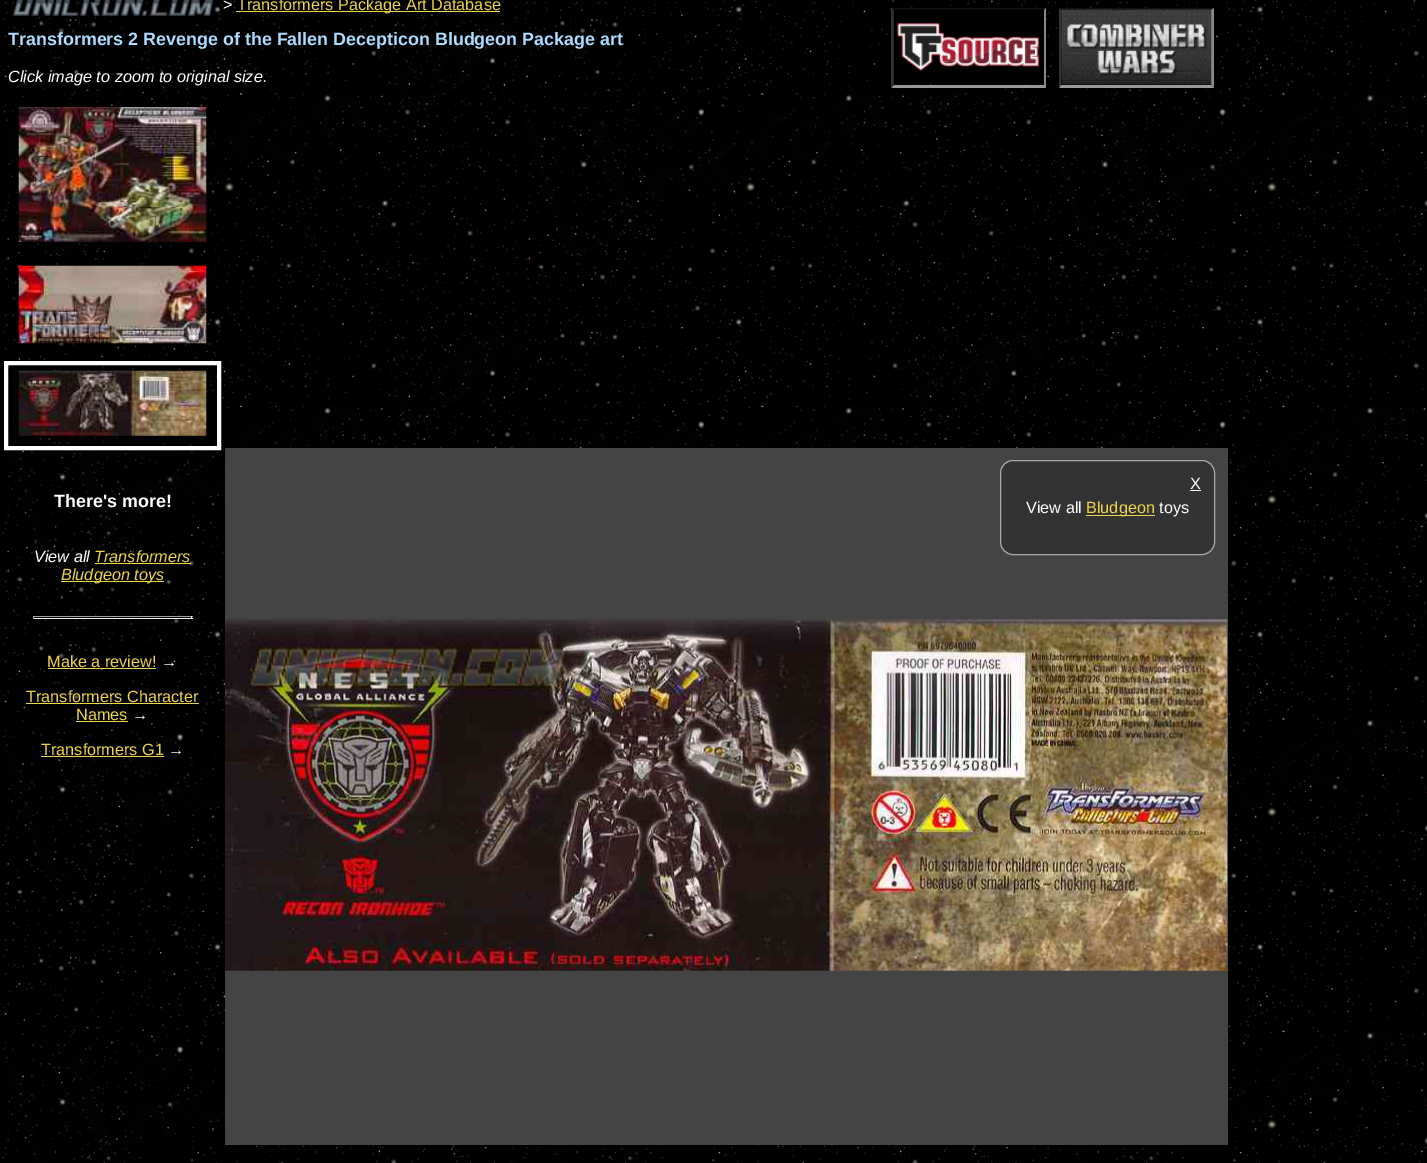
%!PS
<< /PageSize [1427 1163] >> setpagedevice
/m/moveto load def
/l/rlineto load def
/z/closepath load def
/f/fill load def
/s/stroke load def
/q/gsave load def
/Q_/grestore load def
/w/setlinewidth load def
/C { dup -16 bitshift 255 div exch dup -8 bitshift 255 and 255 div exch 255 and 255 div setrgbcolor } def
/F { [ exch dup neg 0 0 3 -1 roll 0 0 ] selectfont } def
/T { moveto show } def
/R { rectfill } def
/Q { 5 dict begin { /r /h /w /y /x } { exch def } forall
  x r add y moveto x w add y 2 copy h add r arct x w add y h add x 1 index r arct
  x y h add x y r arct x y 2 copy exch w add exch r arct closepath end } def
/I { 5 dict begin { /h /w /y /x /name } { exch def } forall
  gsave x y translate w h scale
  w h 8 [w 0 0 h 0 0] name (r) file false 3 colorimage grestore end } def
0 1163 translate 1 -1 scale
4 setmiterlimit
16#000000 C
0 0 1427 1163 R
(1.rgb) 2 0 1425 1163 I
(2.rgb) 12 0 202 18 I
/LiberationSans-Regular 16.25 F
16#FFFFFF C
(>) 223 10 T
16#EDD448 C
236 11 264 1 R
(Transformers Package Art Database) 237 10 T
16#111111 C
891 8 m 155 0 l -2 2 l -150 0 l z f
16#888888 C
1046 8 m 0 80 l -2 -3 l 0 -75 l z f
16#999999 C
1046 88 m -155 0 l 3 -3 l 150 0 l z f
16#333333 C
891 88 m 0 -80 l 3 2 l 0 75 l z f
16#111111 C
1059 8 m 155 0 l -3 2 l -150 0 l z f
(3.rgb) 893 9 151 76 I
16#888888 C
1214 8 m 0 80 l -3 -3 l 0 -75 l z f
16#999999 C
1214 88 m -155 0 l 2 -3 l 150 0 l z f
16#333333 C
1059 88 m 0 -80 l 2 2 l 0 75 l z f
(4.rgb) 1061 9 151 76 I
/LiberationSans-Bold 17.9 F
16#AADDFF C
(Transformers 2 Revenge of the Fallen Decepticon Bludgeon Package art) 8 45 T
/LiberationSans-Italic 16.25 F
16#FFFFFF C
(Click image to zoom to original size.) 8 82 T
(5.rgb) 18 107 189 135 I
(6.rgb) 18 265 189 79 I
4 w
6 363 213 85 rectstroke
(7.rgb) 18 370 189 66 I
/LiberationSans-Bold 17.9 F
(There's more!) 54 507 T
/LiberationSans-Italic 16.25 F
(View all) 34 562 T
16#EDD448 C
(Transformers) 94 562 T
95 563 96 1 R
61 581 103 1 R
(Bludgeon toys) 61 580 T
16#9F9F9F C
33 616 160 1 R
16#EEEEEE C
191 616 1 3 R
33 618 160 1 R
16#9F9F9F C
33 616 1 3 R
/LiberationSans-Regular 16.25 F
16#EDD448 C
(Make a review!) 47 667 T
48 668 108 1 R
16#FFFFFF C
(→) 161 667 T
16#EDD448 C
(Transformers Character) 26 702 T
26 703 173 1 R
(Names) 76 720 T
76 721 52 1 R
16#FFFFFF C
(→) 132 720 T
16#EDD448 C
(Transformers G1) 41 755 T
41 756 123 1 R
16#FFFFFF C
(→) 168 755 T
16#444444 C
225 448 1003 697 R
16#333333 C
1000.5 460.5 214 94 12.5 Q q f Q_
16#AAAAAA C
1 w
s
16#FFFFFF C
(X) 1190 489 T
1190 490 11 1 R
(View all) 1026 513 T
16#EDD448 C
1086 515 69 1 R
(Bludgeon) 1086 513 T
16#FFFFFF C
(toys) 1159 513 T
(8.rgb) 225 619 1003 352 I
showpage
